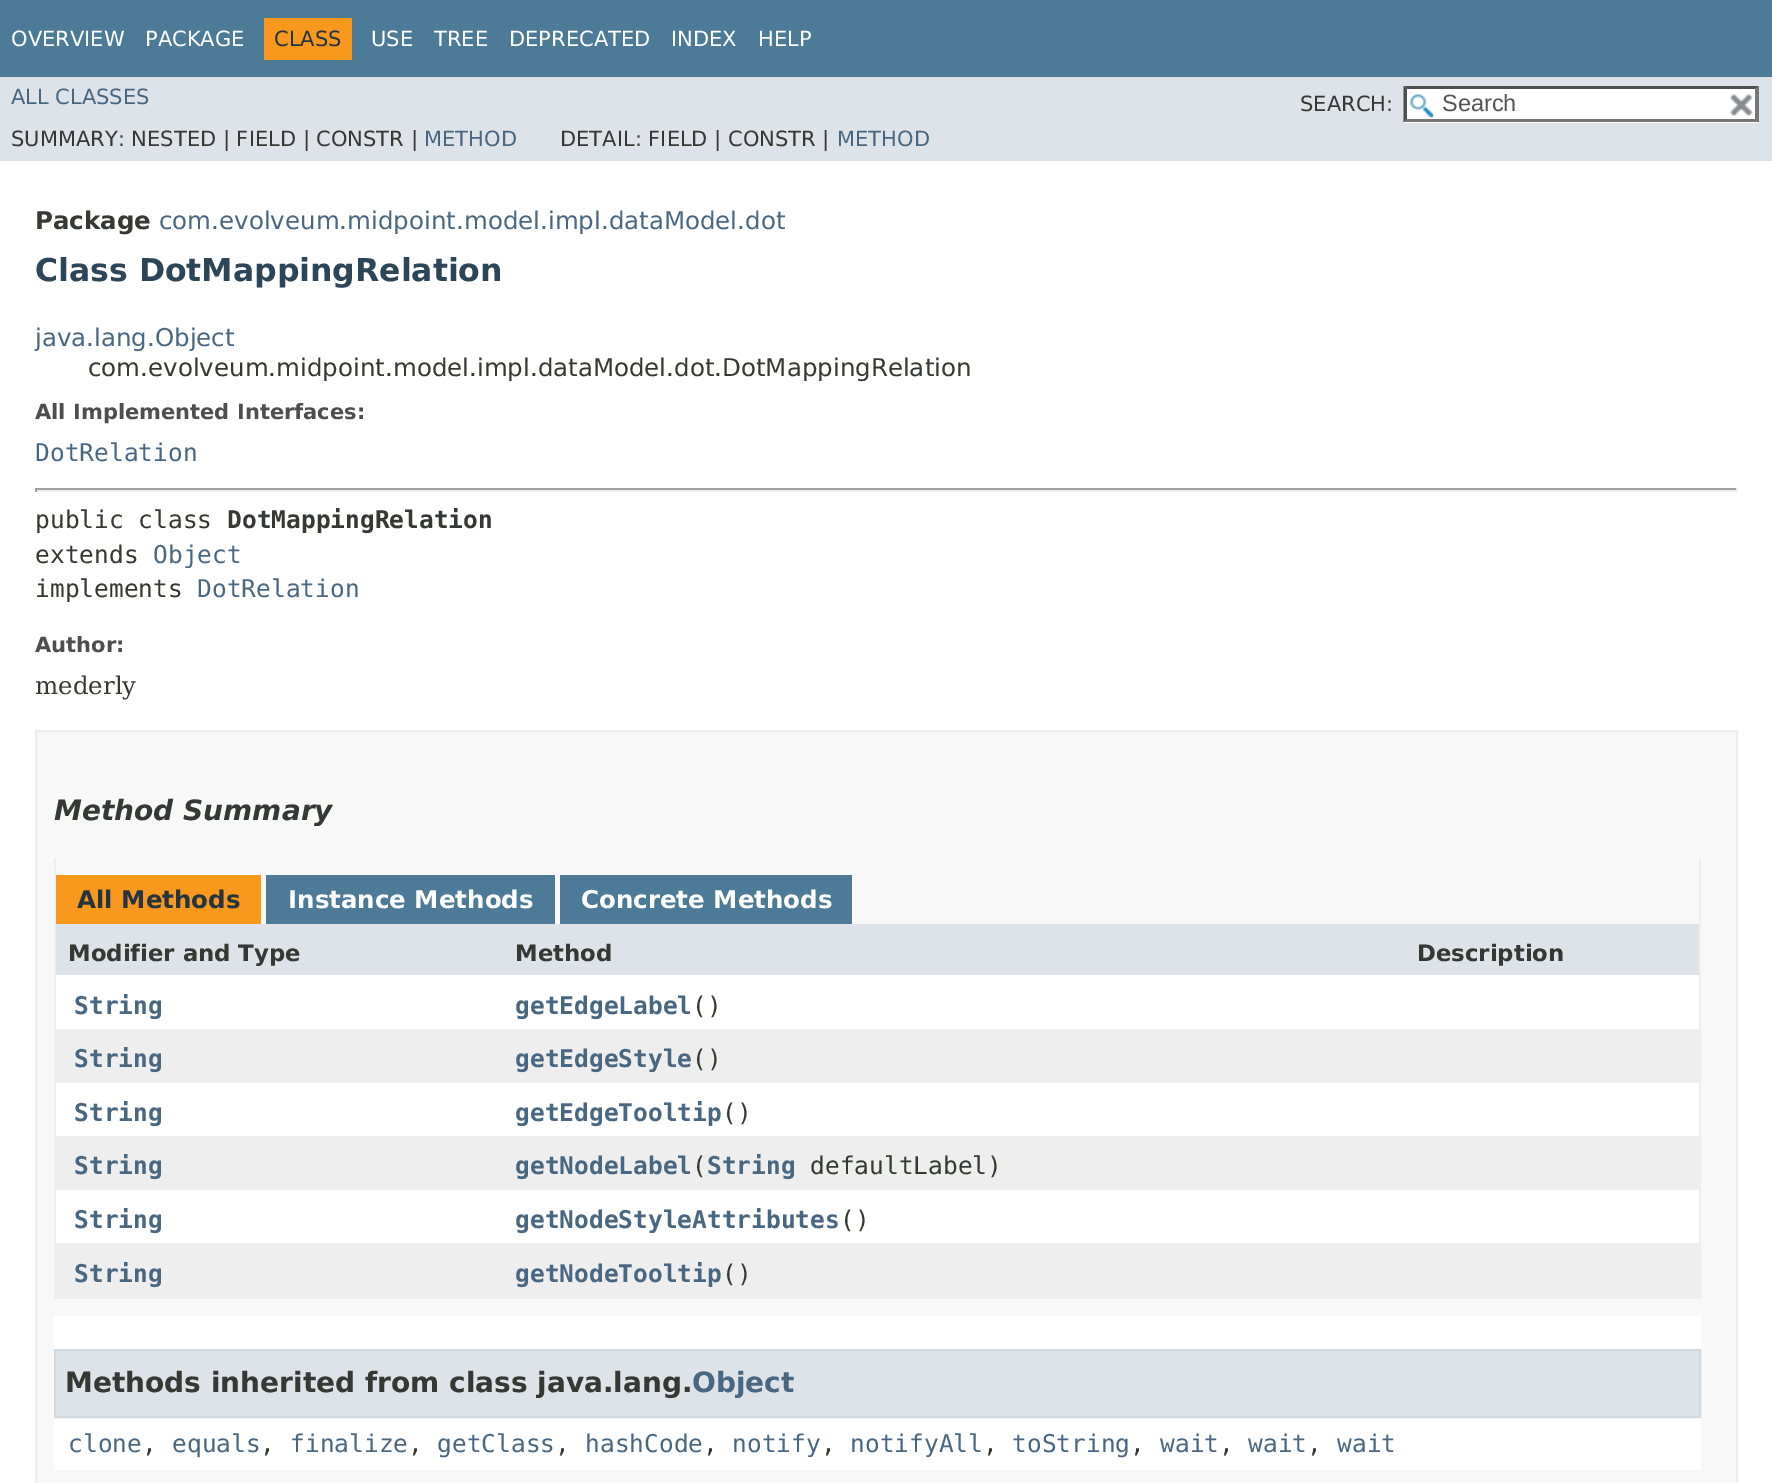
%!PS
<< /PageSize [1772 1483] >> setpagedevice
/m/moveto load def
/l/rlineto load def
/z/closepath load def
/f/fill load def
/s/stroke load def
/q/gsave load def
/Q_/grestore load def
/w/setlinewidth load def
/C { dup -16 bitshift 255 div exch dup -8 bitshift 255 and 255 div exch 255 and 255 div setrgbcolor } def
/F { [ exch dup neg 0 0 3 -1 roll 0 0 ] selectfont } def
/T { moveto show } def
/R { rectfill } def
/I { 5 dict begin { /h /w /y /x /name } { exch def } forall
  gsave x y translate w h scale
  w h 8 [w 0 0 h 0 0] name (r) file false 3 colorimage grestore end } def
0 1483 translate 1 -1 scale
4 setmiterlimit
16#FFFFFF C
0 0 1772 1483 R
16#4D7A97 C
0 0 1772 77 R
/DejaVuSans-Regular 21 F
16#FFFFFF C
(OVERVIEW) 11 46 T
(PACKAGE) 145 46 T
16#F8981D C
264 18 88 42 R
16#253441 C
(CLASS) 274 46 T
16#FFFFFF C
(USE) 371 46 T
(TREE) 434 46 T
(DEPRECATED) 509 46 T
(INDEX) 671 46 T
(HELP) 758 46 T
16#DEE3E9 C
0 77 1772 84 R
16#4A6782 C
(ALL CLASSES) 11 104 T
16#353833 C
(SEARCH:) 1300 111 T
16#FFFFFF C
1404 86 355 37 R
(1.rgb) 1410 94 24 24 I
16#4F4F4F C
1404 86 m 355 0 l -4 3 l -348 0 l z f
16#767676 C
1759 86 m 0 36.5 l -4 -3.5 l 0 -30 l z f
1759 122 m -355 0 l 3 -3 l 348 0 l z f
16#4F4F4F C
1403.5 122.5 m 0 -36.5 l 3.5 3 l 0 30 l z f
/LiberationSans-Regular 23.5 F
16#545454 C
(Search) 1442 111 T
(2.rgb) 1729 94 24 22 I
/DejaVuSans-Regular 21 F
16#353833 C
(SUMMARY: NESTED | FIELD | CONSTR |) 11 146 T
16#4A6782 C
(METHOD) 424 146 T
16#353833 C
(DETAIL: FIELD | CONSTR |) 560 146 T
16#4A6782 C
(METHOD) 837 146 T
/DejaVuSans-Bold 24.5 F
16#353833 C
(Package) 35 229 T
/DejaVuSans-Regular 24.5 F
16#4A6782 C
(com.evolveum.midpoint.model.impl.dataModel.dot) 159 229 T
/DejaVuSans-Bold 31.5 F
16#2C4557 C
(Class DotMappingRelation) 35 281 T
/DejaVuSans-Regular 24.5 F
16#4A6782 C
(java.lang.Object) 35 346 T
16#353833 C
(com.evolveum.midpoint.model.impl.dataModel.dot.DotMappingRelation) 88 376 T
/DejaVuSans-Bold 21 F
16#4E4E4E C
(All Implemented Interfaces:) 35 419 T
/DejaVuSansMono-Regular 24.5 F
16#4A6782 C
(DotRelation) 35 461 T
16#9F9F9F C
35 488 1703 2 R
16#EEEEEE C
1736 488 2 4 R
35 490 1703 2 R
16#9F9F9F C
35 488 2 4 R
16#353833 C
(public class) 35 528 T
/DejaVuSansMono-Bold 24.5 F
(DotMappingRelation) 227 528 T
/DejaVuSansMono-Regular 24.5 F
(extends) 35 563 T
16#4A6782 C
(Object) 153 563 T
16#353833 C
(implements) 35 597 T
16#4A6782 C
(DotRelation) 197 597 T
/DejaVuSans-Bold 21 F
16#4E4E4E C
(Author:) 35 652 T
/DejaVuSerif-Regular 24.5 F
16#353833 C
(mederly) 35 694 T
16#F8F8F8 C
36 731 m 1701 0 l 0 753 l -1701 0 l z q f Q_
16#EDEDED C
2 w
s
/DejaVuSans-BoldItalic 28 F
16#353833 C
(Method Summary) 54 820 T
16#EEEEEE C
1699 858 2 441 R
54 1297 1647 2 R
54 858 2 441 R
16#F8981D C
56 875 205 49 R
/DejaVuSans-Bold 24.5 F
16#253441 C
(All Methods) 77 908 T
16#4D7A97 C
266 875 289 49 R
16#FFFFFF C
(Instance Methods) 288 908 T
16#4D7A97 C
560 875 292 49 R
16#FFFFFF C
(Concrete Methods) 581 908 T
16#DEE3E9 C
56 924 1643 51 R
/DejaVuSans-Bold 22.75 F
16#353833 C
(Modifier and Type) 68 961 T
(Method) 515 961 T
(Description) 1417 961 T
16#FFFFFF C
56 975 1643 54 R
/DejaVuSansMono-Bold 24.5 F
16#4A6782 C
(String) 74 1014 T
(getEdgeLabel) 515 1014 T
/DejaVuSansMono-Regular 24.5 F
16#353833 C
(\(\)) 692 1014 T
16#EEEEEF C
56 1029 1643 54 R
/DejaVuSansMono-Bold 24.5 F
16#4A6782 C
(String) 74 1067 T
(getEdgeStyle) 515 1067 T
/DejaVuSansMono-Regular 24.5 F
16#353833 C
(\(\)) 692 1067 T
16#FFFFFF C
56 1083 1643 53 R
/DejaVuSansMono-Bold 24.5 F
16#4A6782 C
(String) 74 1121 T
(getEdgeTooltip) 515 1121 T
/DejaVuSansMono-Regular 24.5 F
16#353833 C
(\(\)) 722 1121 T
16#EEEEEF C
56 1136 1643 54 R
/DejaVuSansMono-Bold 24.5 F
16#4A6782 C
(String) 74 1174 T
(getNodeLabel String) 515 1174 T
/DejaVuSansMono-Regular 24.5 F
16#353833 C
(\() 692 1174 T
(defaultLabel\)) 810 1174 T
16#FFFFFF C
56 1190 1643 53 R
/DejaVuSansMono-Bold 24.5 F
16#4A6782 C
(String) 74 1228 T
(getNodeStyleAttributes) 515 1228 T
/DejaVuSansMono-Regular 24.5 F
16#353833 C
(\(\)) 840 1228 T
16#EEEEEF C
56 1243 1643 54 R
/DejaVuSansMono-Bold 24.5 F
16#4A6782 C
(String) 74 1282 T
(getNodeTooltip) 515 1282 T
/DejaVuSansMono-Regular 24.5 F
16#353833 C
(\(\)) 722 1282 T
16#FFFFFF C
54 1316 1647 154 R
16#DEE3E9 C
55 1350 m 1645 0 l 0 67 l -1645 0 l z q f Q_
16#D0D9E0 C
s
/DejaVuSans-Bold 28 F
16#353833 C
(Methods inherited from class java.lang.) 65 1392 T
16#4A6782 C
(Object) 692 1392 T
/DejaVuSansMono-Regular 24.5 F
(clone) 68 1452 T
16#353833 C
(,) 142 1452 T
16#4A6782 C
(equals) 172 1452 T
16#353833 C
(,) 260 1452 T
16#4A6782 C
(finalize) 290 1452 T
16#353833 C
(,) 408 1452 T
16#4A6782 C
(getClass) 437 1452 T
16#353833 C
(,) 555 1452 T
16#4A6782 C
(hashCode) 585 1452 T
16#353833 C
(,) 703 1452 T
16#4A6782 C
(notify) 732 1452 T
16#353833 C
(,) 821 1452 T
16#4A6782 C
(notifyAll) 850 1452 T
16#353833 C
(,) 983 1452 T
16#4A6782 C
(toString) 1012 1452 T
16#353833 C
(,) 1130 1452 T
16#4A6782 C
(wait) 1160 1452 T
16#353833 C
(,) 1219 1452 T
16#4A6782 C
(wait) 1248 1452 T
16#353833 C
(,) 1307 1452 T
16#4A6782 C
(wait) 1337 1452 T
showpage
